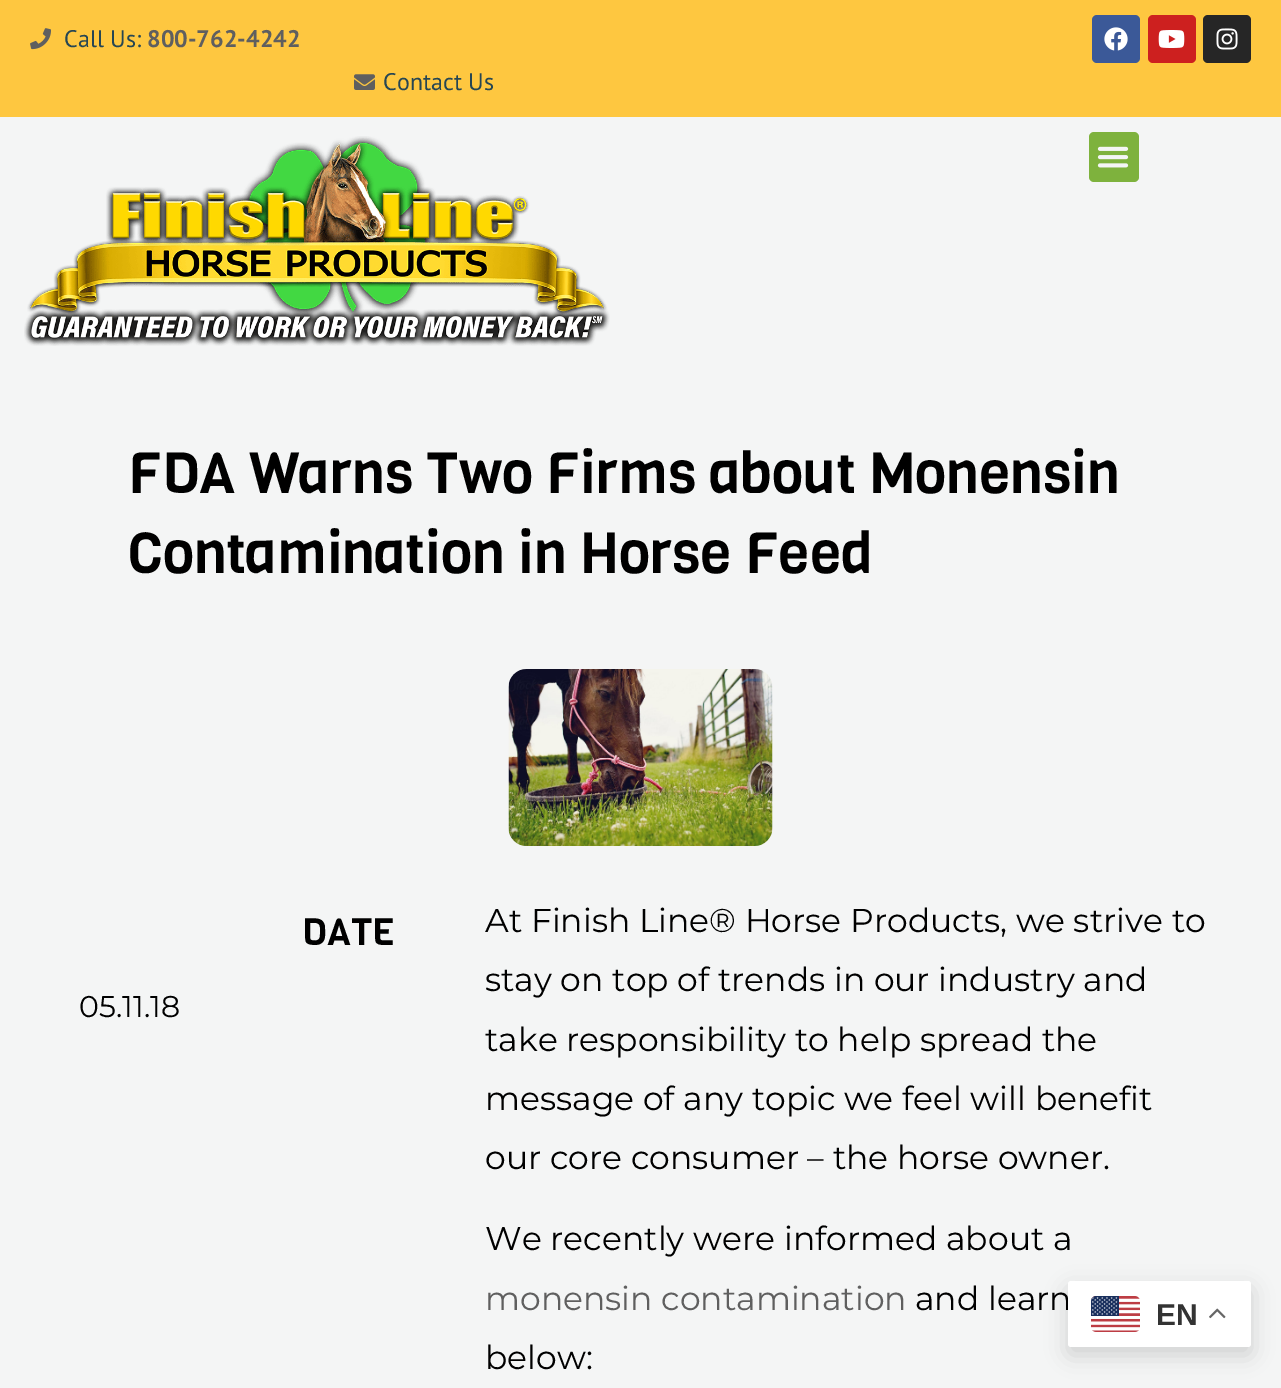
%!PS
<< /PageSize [1281 1388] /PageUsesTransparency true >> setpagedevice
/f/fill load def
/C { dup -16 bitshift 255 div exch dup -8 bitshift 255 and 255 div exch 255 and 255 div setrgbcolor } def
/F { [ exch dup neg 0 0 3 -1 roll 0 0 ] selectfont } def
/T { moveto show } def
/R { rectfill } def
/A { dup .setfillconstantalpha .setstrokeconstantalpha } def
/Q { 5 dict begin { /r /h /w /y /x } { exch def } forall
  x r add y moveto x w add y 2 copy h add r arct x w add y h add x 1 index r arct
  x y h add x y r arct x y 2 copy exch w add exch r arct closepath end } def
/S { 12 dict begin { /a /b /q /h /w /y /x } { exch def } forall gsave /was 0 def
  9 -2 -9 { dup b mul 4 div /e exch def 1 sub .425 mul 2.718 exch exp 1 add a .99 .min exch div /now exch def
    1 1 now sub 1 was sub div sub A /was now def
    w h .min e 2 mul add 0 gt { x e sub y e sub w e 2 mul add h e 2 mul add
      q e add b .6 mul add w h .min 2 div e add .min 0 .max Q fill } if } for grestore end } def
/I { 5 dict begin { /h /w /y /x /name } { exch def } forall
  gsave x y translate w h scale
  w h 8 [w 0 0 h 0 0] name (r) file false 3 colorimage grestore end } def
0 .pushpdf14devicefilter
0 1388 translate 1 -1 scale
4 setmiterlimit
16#F4F5F5 C
0 0 1281 1388 R
16#FEC740 C
0 0 1281 117 R
(1.rgb) 30 28 21 22 I
/PTSans-Regular 24 F
16#264653 C
(Call Us:) 64 47 T
/PTSans-Bold 24 F
16#5F5F5F C
(800-762-4242) 147 47 T
16#3B5998 C
1092 15 48 48 5 Q f
(2.rgb) 1104 27 24 24 I
16#CD201F C
1148 15 48 48 5 Q f
(3.rgb) 1158 30 27 18 I
16#262626 C
1203 15 48 48 5 Q f
(4.rgb) 1216 28 22 22 I
(5.rgb) 354 74 21 16 I
/PTSans-Regular 24 F
16#264653 C
(Contact Us) 383 90 T
(6.rgb) 24 136 586 210 I
16#7EB23D C
1089 132 50 50 5 Q f
(7.rgb) 1097 146 32 22 I
/Viga-Regular 57 F
16#000000 C
(FDA Warns Two Firms about Monensin) 128 493 T
(Contamination in Horse Feed) 128 573 T
(8.rgb) 508 669 265 177 I
/Viga-Regular 37.5 F
(DATE) 302 945 T
/Montserrat-Regular 30 F
(05.11.18) 79 1017 T
/Montserrat-Regular 33 F
(At Finish Line® Horse Products, we strive to) 485 932 T
(stay on top of trends in our industry and) 485 991 T
(take responsibility to help spread the) 485 1051 T
(message of any topic we feel will benefit) 485 1110 T
(our core consumer – the horse owner.) 485 1169 T
(We recently were informed about a) 485 1250 T
16#5F5F5F C
(monensin contamination) 485 1310 T
16#000000 C
(and learn) 915 1310 T
(below:) 485 1369 T
1068 1289 183 66 3 11 .15 S
16#FFFFFF C
1068 1281 183 66 3 Q f
(9.rgb) 1091 1296 49 36 I
/LiberationSans-Bold 30 F
16#333333 C
(EN) 1156 1325 T
(10.rgb) 1209 1308 17 11 I
.poppdf14devicefilter showpage
